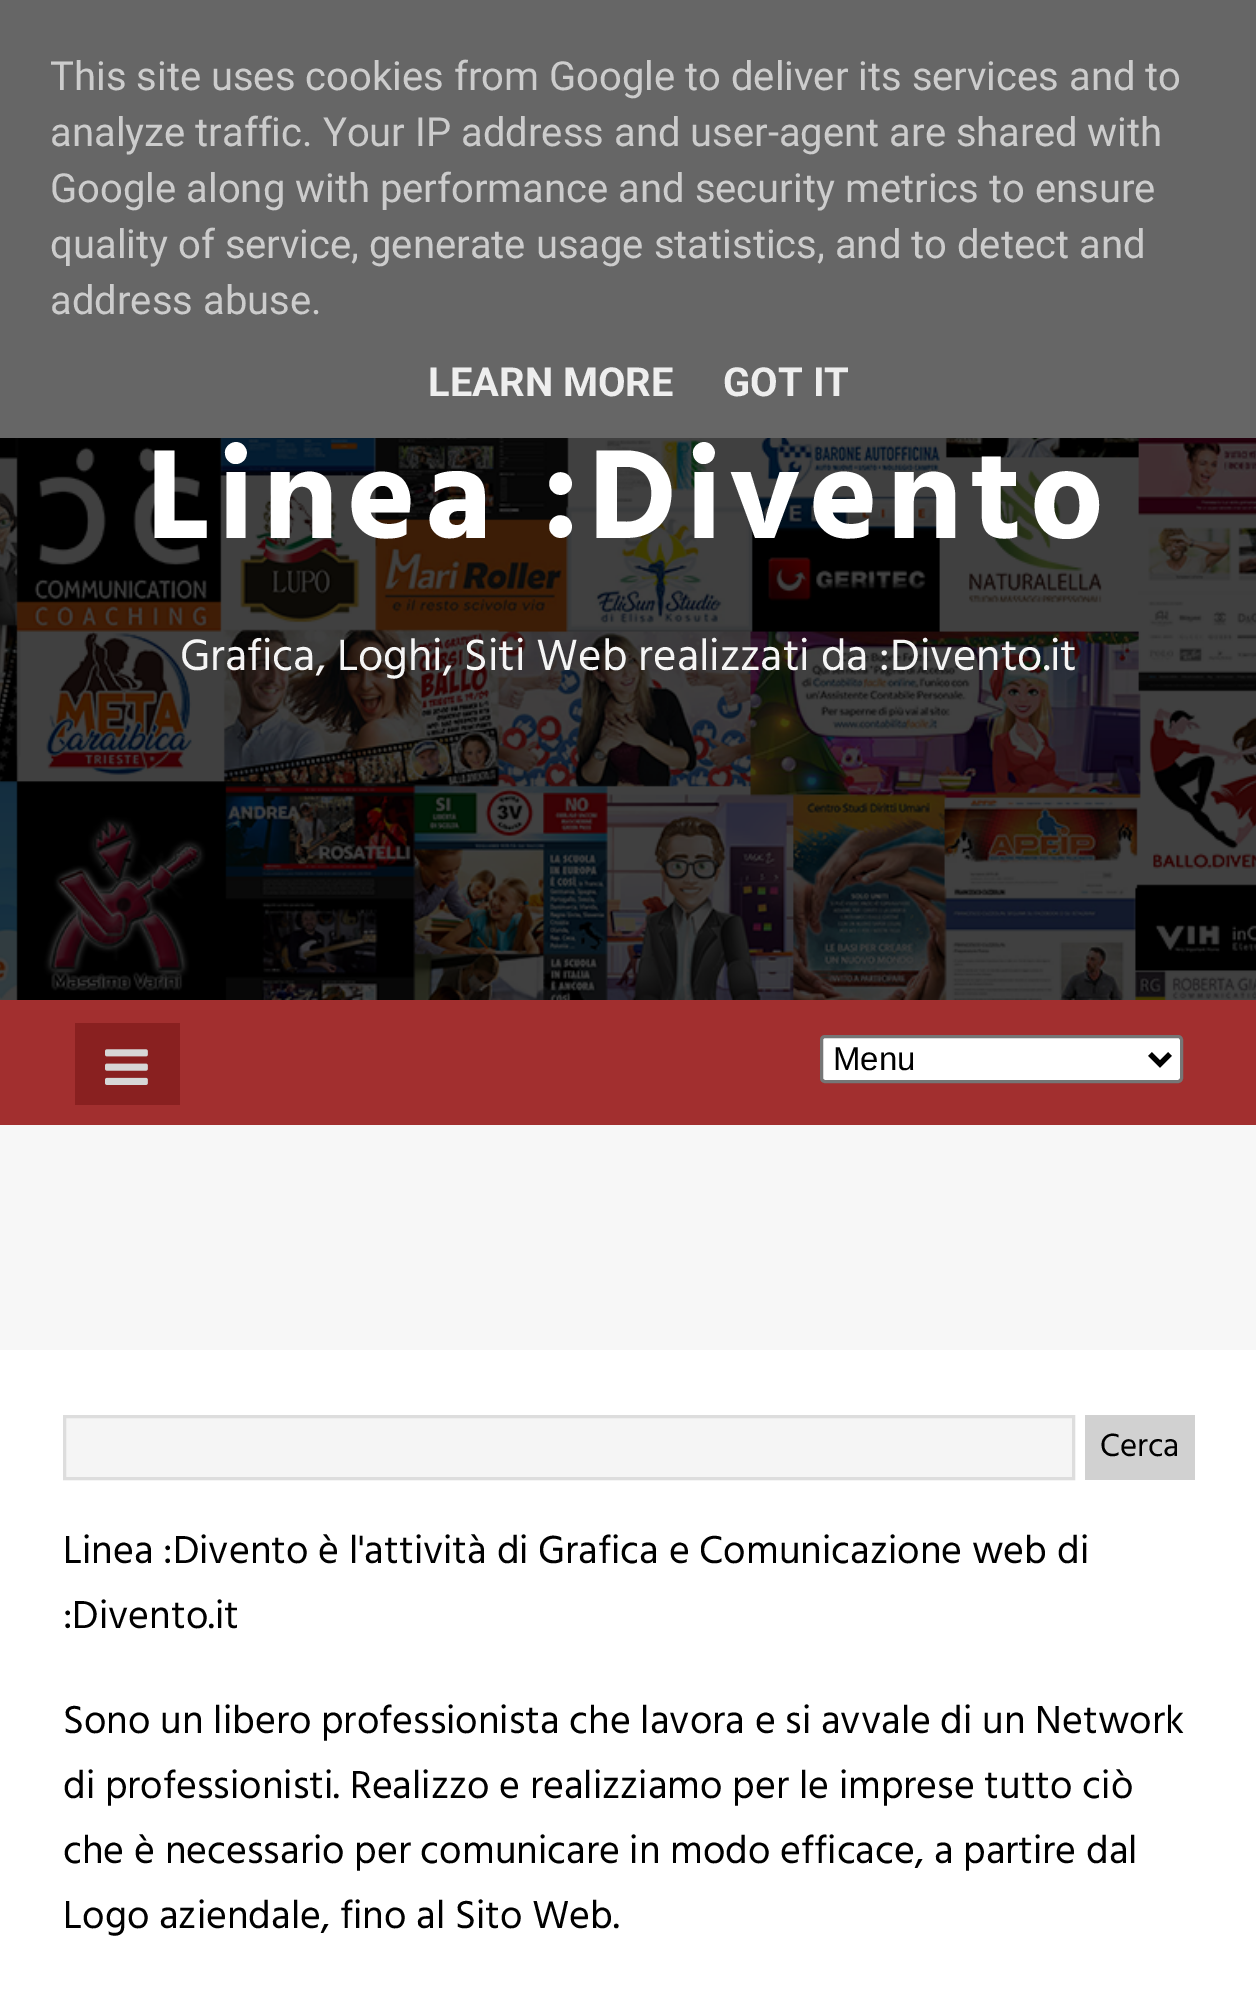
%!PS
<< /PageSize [1256 1991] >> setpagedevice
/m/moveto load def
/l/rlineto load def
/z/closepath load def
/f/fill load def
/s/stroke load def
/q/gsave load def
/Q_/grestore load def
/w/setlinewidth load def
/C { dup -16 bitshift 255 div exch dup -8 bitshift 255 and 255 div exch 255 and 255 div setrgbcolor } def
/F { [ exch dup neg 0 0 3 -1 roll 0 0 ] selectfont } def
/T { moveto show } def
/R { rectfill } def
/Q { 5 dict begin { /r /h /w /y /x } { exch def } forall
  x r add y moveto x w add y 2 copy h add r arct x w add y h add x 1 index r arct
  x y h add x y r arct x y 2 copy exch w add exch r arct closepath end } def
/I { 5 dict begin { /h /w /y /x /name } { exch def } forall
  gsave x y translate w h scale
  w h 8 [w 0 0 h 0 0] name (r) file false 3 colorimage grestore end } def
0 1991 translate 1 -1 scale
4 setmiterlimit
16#F7F7F7 C
0 0 1256 1991 R
16#666666 C
0 0 1256 438 R
/Roboto-Regular 40 F
16#CCCCCC C
(This site uses cookies from Google to deliver its services and to) 50 90 T
(analyze traffic. Your IP address and user-agent are shared with) 50 146 T
(Google along with performance and security metrics to ensure) 50 202 T
(quality of service, generate usage statistics, and to detect and) 50 258 T
(address abuse.) 50 314 T
/Roboto-Bold 40 F
16#EEEEEE C
(LEARN MORE) 428 396 T
(GOT IT) 723 396 T
(1.rgb) 0 438 1256 562 I
/Hind-Bold 130 F
16#FFFFFF C
146 538 m 8.75 0 (Linea :Divento) ashow
/Hind-Regular 45 F
16#F5F5F5 C
(Grafica, Loghi, Siti Web realizzati da :Divento.it) 180 670 T
16#A22F2F C
0 1000 1256 125 R
16#892020 C
75 1023 105 82 R
(2.rgb) 105 1049 43 36 I
16#FFFFFF C
821.5 1036.5 360 45 3.5 Q q f Q_
16#767676 C
3 w
s
16#000000 C
5 w
1150 1054 m 10 10 l 10 -10 l s
/LiberationSans-Regular 33 F
(Menu) 833 1070 T
16#FFFFFF C
0 1350 1256 641 R
16#F5F5F5 C
64.5 1416.5 m 1009 0 l 0 62 l -1009 0 l z q f Q_
16#DDDDDD C
3 w
s
16#D1D1D1 C
1085 1415 110 65 R
/Hind-Regular 33 F
16#000000 C
(Cerca) 1100 1456 T
/Hind-Regular 40 F
(Linea :Divento è l'attività di Grafica e Comunicazione web di) 63 1563 T
(:Divento.it) 63 1628 T
(Sono un libero professionista che lavora e si avvale di un Network) 63 1733 T
(di professionisti. Realizzo e realizziamo per le imprese tutto ciò) 63 1798 T
(che è necessario per comunicare in modo efficace, a partire dal) 63 1863 T
(Logo aziendale, fino al Sito Web.) 63 1928 T
showpage
